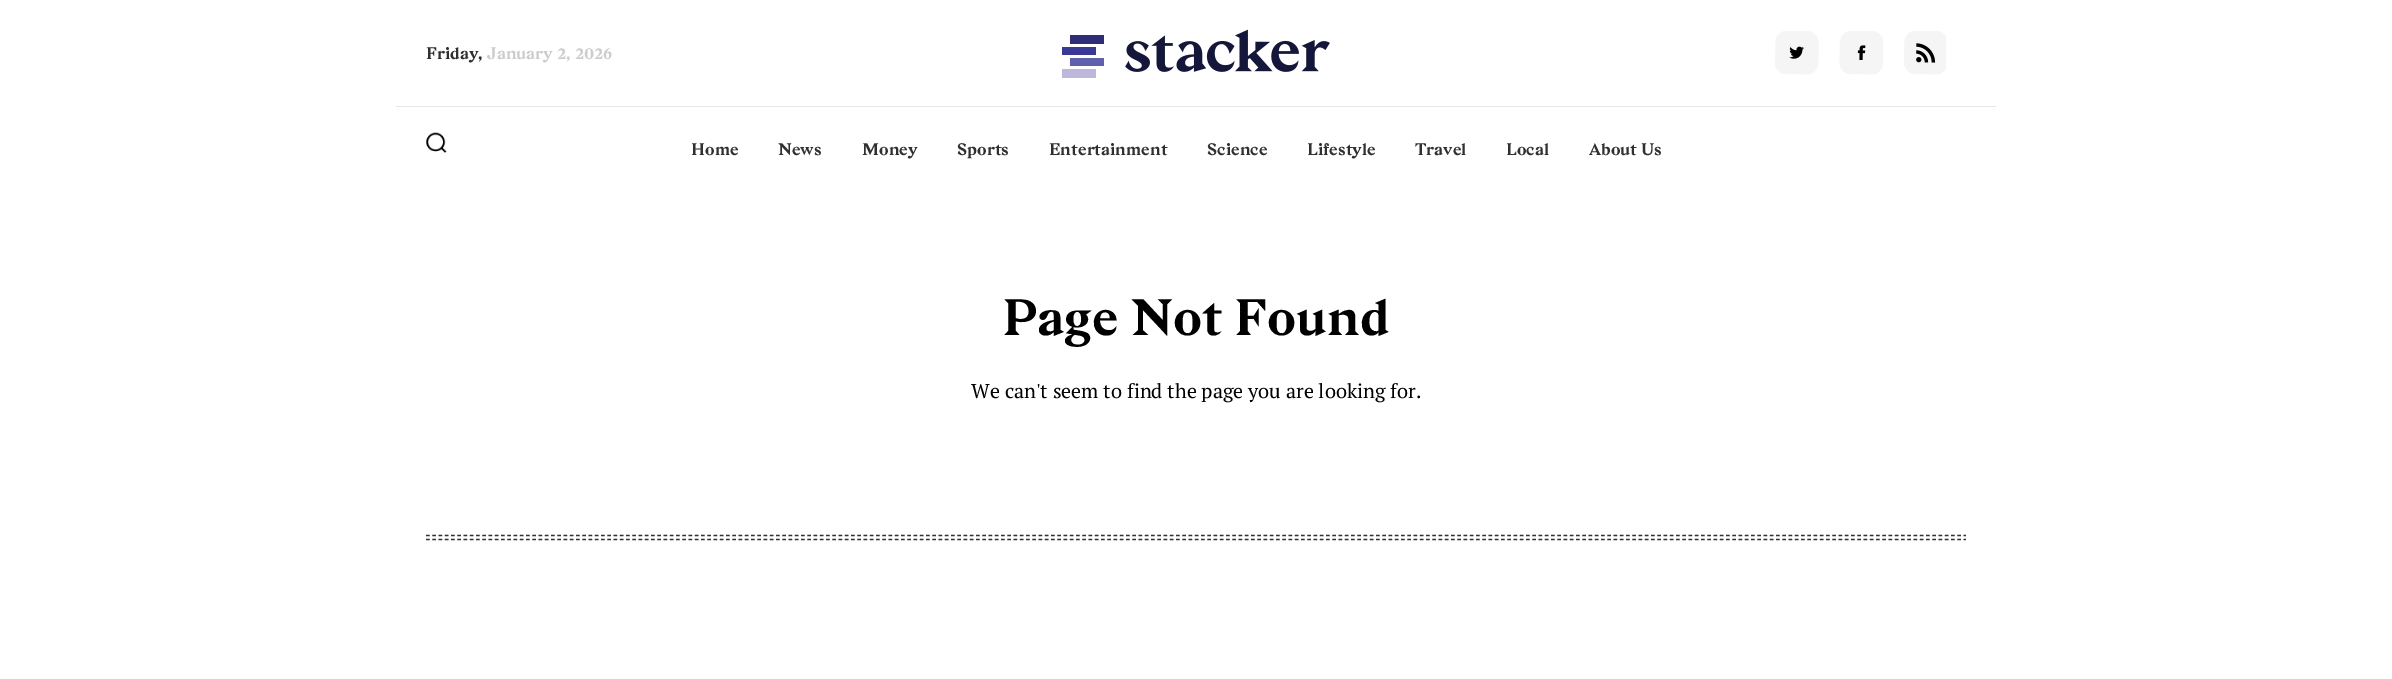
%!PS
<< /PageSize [2392 679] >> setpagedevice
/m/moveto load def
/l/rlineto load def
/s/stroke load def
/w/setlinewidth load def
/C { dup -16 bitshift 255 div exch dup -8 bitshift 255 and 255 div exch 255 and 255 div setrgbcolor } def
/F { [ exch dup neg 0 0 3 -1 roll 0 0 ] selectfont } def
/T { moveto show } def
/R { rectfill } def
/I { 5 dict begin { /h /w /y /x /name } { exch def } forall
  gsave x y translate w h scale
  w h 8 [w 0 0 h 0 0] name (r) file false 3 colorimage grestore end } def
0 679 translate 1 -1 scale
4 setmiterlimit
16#FFFFFF C
0 0 2392 679 R
/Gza-Bold 16.75 F
16#303030 C
(Friday,) 426 59 T
16#CCCCCC C
(January 2, 2026) 487 59 T
(1.rgb) 1062 29 268 49 I
(2.rgb) 1775 31 44 44 I
(3.rgb) 1839 31 44 44 I
(4.rgb) 1904 31 42 44 I
(5.rgb) 426 132 21 21 I
16#E6E6E6 C
396 106 1600 1 R
16#303030 C
(Home) 691 155 T
(News) 778 155 T
(Money) 862 155 T
(Sports) 957 155 T
(Entertainment) 1049 155 T
(Science) 1207 155 T
(Lifestyle) 1307 155 T
(Travel) 1415 155 T
(Local) 1506 155 T
(About Us) 1589 155 T
/Gza-Bold 51 F
16#000000 C
(Page Not Found) 1002 335 T
/PTSerif-Regular 20 F
(We can't seem to find the page you are looking for.) 971 398 T
16#303030 C
1.2 w
[3.75 2.5] 0 setdash
426 535.5 m 1540 0 l s
426 539.5 m 1540 0 l s
showpage
